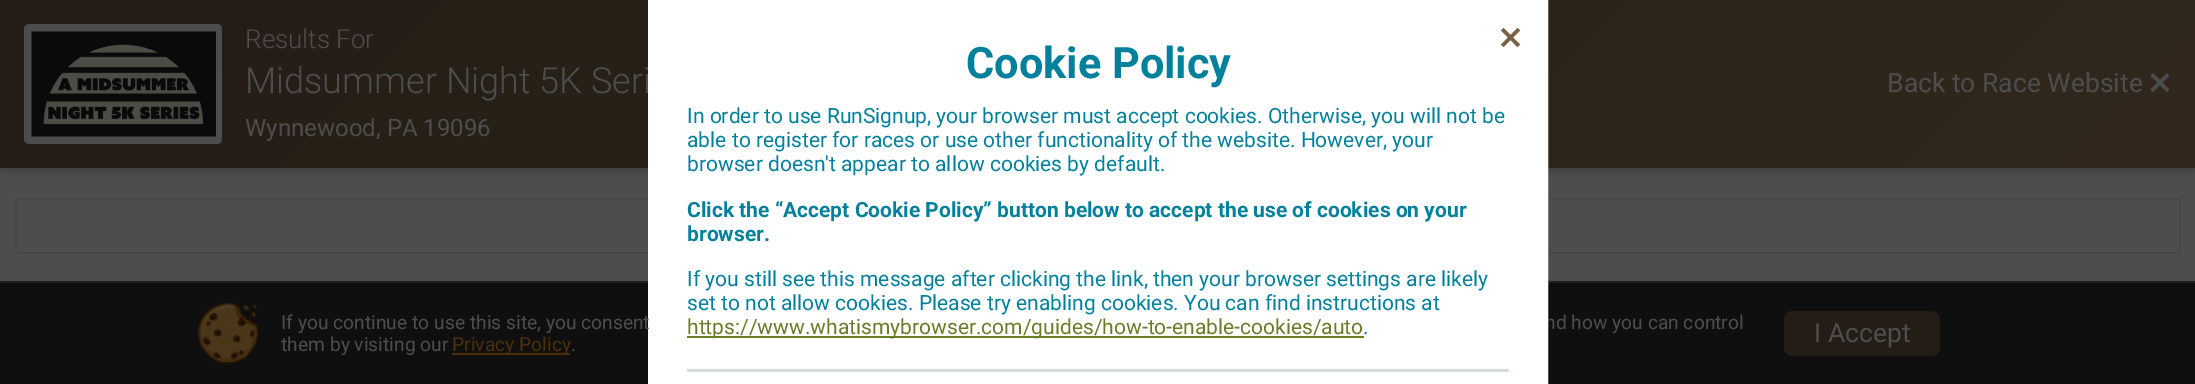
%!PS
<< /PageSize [2195 384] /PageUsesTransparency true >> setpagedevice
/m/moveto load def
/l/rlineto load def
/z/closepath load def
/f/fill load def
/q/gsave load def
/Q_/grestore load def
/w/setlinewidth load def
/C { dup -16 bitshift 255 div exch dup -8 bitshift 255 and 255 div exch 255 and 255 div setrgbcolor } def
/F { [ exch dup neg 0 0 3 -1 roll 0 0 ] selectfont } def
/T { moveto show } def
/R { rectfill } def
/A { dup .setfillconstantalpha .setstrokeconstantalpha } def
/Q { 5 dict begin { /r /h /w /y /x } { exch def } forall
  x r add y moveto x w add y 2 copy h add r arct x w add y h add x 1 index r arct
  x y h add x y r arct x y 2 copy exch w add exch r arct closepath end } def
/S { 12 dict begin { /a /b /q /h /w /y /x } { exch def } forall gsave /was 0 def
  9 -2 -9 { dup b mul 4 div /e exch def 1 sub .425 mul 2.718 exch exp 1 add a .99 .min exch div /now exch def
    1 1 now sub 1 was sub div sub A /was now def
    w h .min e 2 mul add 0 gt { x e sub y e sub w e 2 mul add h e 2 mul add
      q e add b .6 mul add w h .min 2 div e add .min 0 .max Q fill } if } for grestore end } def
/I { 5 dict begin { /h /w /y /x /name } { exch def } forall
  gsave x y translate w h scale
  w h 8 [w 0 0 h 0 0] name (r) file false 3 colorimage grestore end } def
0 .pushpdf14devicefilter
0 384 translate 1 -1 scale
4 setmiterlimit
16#4D4D4D C
0 0 2195 384 R
16#000000 C
0 3 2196 168 0 3 .18 S
q 0 0 m 2195 0 l 0 168 l -2195 0 l z clip newpath
<< /ShadingType 2 /ColorSpace /DeviceRGB /Coords [1689 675 507 -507] /Extend [true true] /Function << /FunctionType 2 /Domain [0 1] /C0 [.192 .153 .114] /C1 [.141 .114 .082] /N 1 >> >> shfill Q_
16#4D4D4D C
24 24 198 120 5 Q f
(1.rgb) 31 31 185 106 I
/Roboto-Light 26 F
(Results For) 245 48 T
/Roboto-Light 36 F
(Midsummer Night 5K Seri) 245 93 T
/Roboto-Regular 24 F
(Wynnewood, PA 19096) 245 136 T
/Roboto-Regular 26.5 F
(Back to Race Website) 1887 92 T
(2.rgb) 2150 73 20 20 I
16#484848 C
2 w
16 199 2164 54 rectstroke
16#0F0F0F C
0 283 2195 101 R
16#1F1F1F C
0 281 2195 2 R
/Roboto-Regular 19.25 F
16#4D4D4D C
(nd how you can control) 1545 329 T
16#FFFFFF C
649 1 898 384 rectstroke
650 2 896 382 R
(3.rgb) 1500 27 21 21 I
/Roboto-Bold 43.25 F
16#02809C C
(Cookie Policy) 966 78 T
/Roboto-Regular 21 F
(In order to use RunSignup, your browser must accept cookies. Otherwise, you will not be) 687 123 T
(able to register for races or use other functionality of the website. However, your) 687 147 T
(browser doesn't appear to allow cookies by default.) 687 171 T
/Roboto-Bold 21 F
(Click the “Accept Cookie Policy” button below to accept the use of cookies on your) 687 217 T
(browser.) 687 241 T
/Roboto-Regular 21 F
(If you still see this message after clicking the link, then your browser settings are likely) 687 286 T
(set to not allow cookies. Please try enabling cookies. You can find instructions at) 687 310 T
16#697C27 C
687 336 677 2 R
(https://www.whatismybrowser.com/guides/how-to-enable-cookies/auto) 687 334 T
16#02809C C
(.) 1363 334 T
16#D3DBDF C
687 369 822 3 R
(4.rgb) 198 303 60 61 I
/Roboto-Regular 19.25 F
16#4D4D4D C
(If you continue to use this site, you consent) 281 329 T
(them by visiting our) 281 351 T
16#4C2E0B C
452 353 118 2 R
(Privacy Policy) 452 351 T
16#4D4D4D C
(.) 571 351 T
16#241D15 C
1784 311 156 45 9 Q f
/Roboto-Regular 26.5 F
16#4D4D4D C
(I Accept) 1814 342 T
.poppdf14devicefilter showpage
